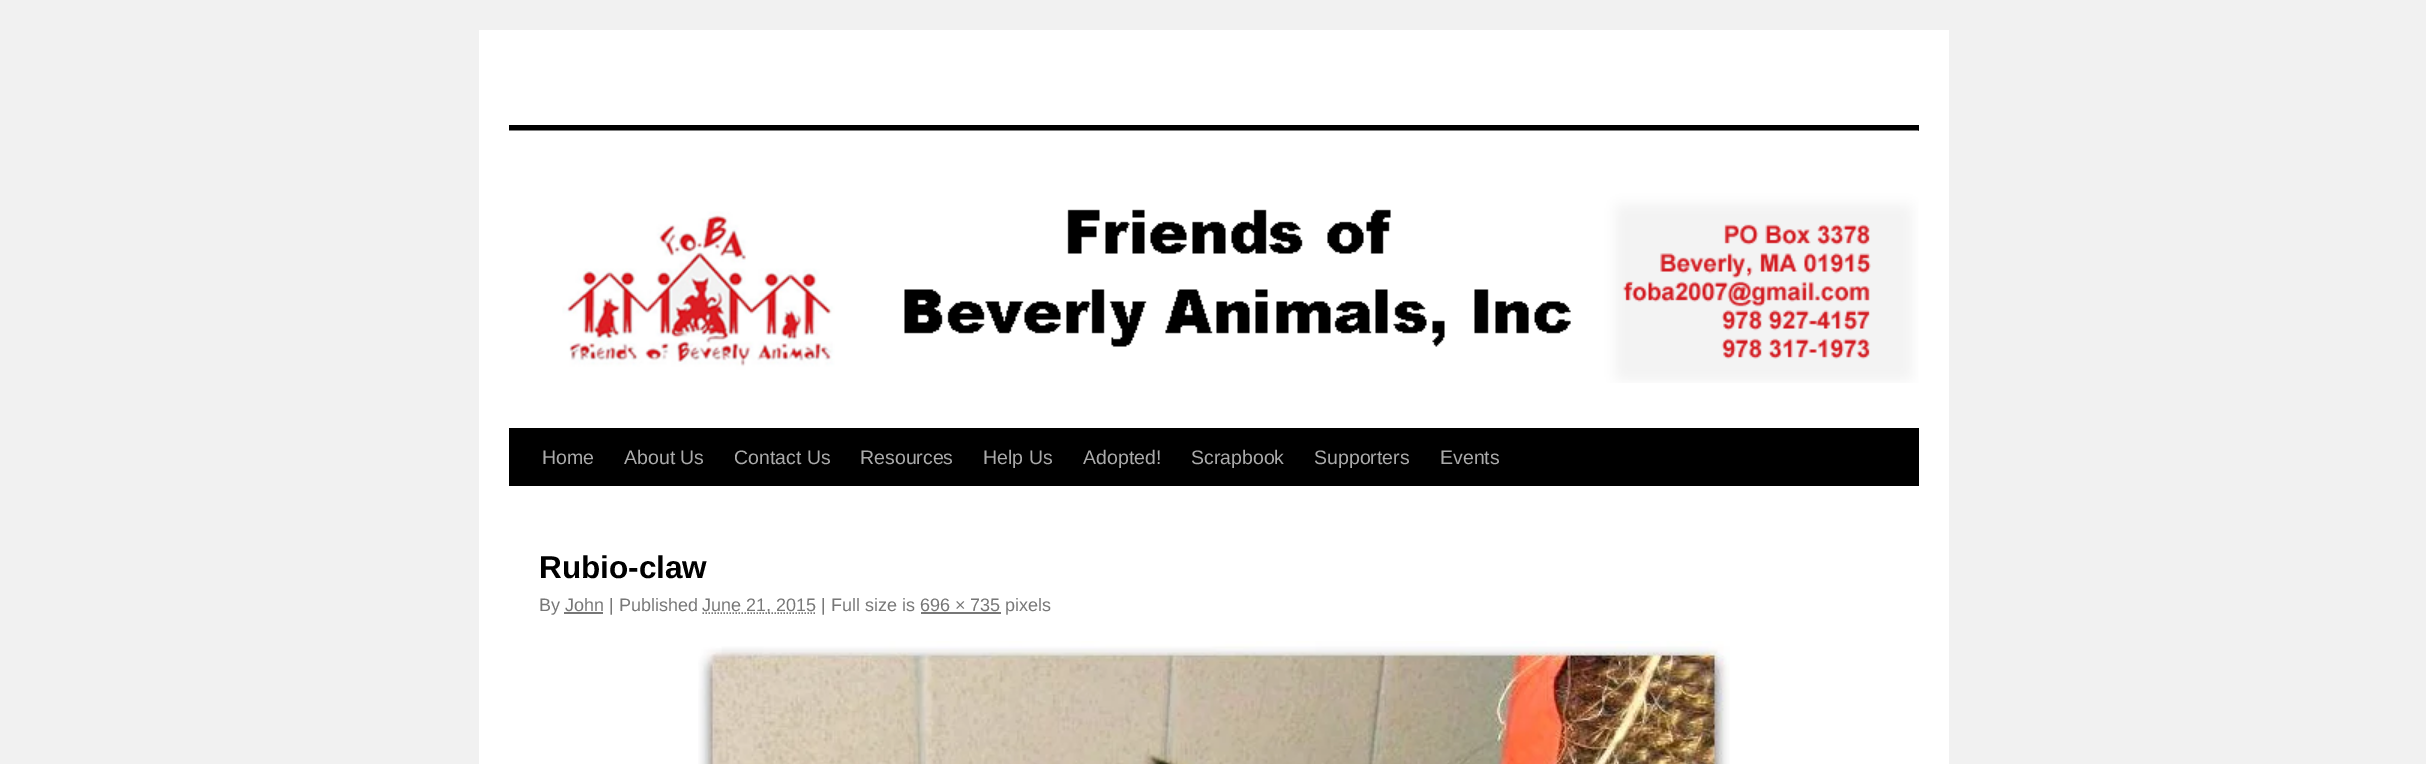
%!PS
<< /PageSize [2426 764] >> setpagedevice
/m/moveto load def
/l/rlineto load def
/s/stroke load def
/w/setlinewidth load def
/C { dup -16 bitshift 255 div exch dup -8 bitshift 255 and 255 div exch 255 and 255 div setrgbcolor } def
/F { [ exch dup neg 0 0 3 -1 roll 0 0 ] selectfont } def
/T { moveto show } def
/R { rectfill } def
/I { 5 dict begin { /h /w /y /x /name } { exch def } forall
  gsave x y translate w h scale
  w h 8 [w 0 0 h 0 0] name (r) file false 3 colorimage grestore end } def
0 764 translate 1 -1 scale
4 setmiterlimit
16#F1F1F1 C
0 0 2426 764 R
16#FFFFFF C
479 30 1470 734 R
16#000000 C
509 125 1410 6 R
509 428 1410 58 R
(1.rgb) 509 130 1410 253 I
/LiberationSans-Regular 19.5 F
16#AAAAAA C
(Home) 542 464 T
(About Us) 624 464 T
(Contact Us) 734 464 T
(Resources) 860 464 T
(Help Us) 983 464 T
(Adopted!) 1083 464 T
(Scrapbook) 1191 464 T
(Supporters) 1314 464 T
(Events) 1440 464 T
/LiberationSans-Bold 31.5 F
16#000000 C
(Rubio-claw) 539 578 T
/LiberationSans-Regular 18 F
16#777777 C
(By John | Published) 539 611 T
1.5 w
[1.5 1.5] 0 setdash
702.5 613 m 114 0 l s
(June 21, 2015 | Full size is 696 × 735 pixels) 702 611 T
564 612 39 2 R
921 612 80 2 R
(2.rgb) 698 641 1032 123 I
showpage
